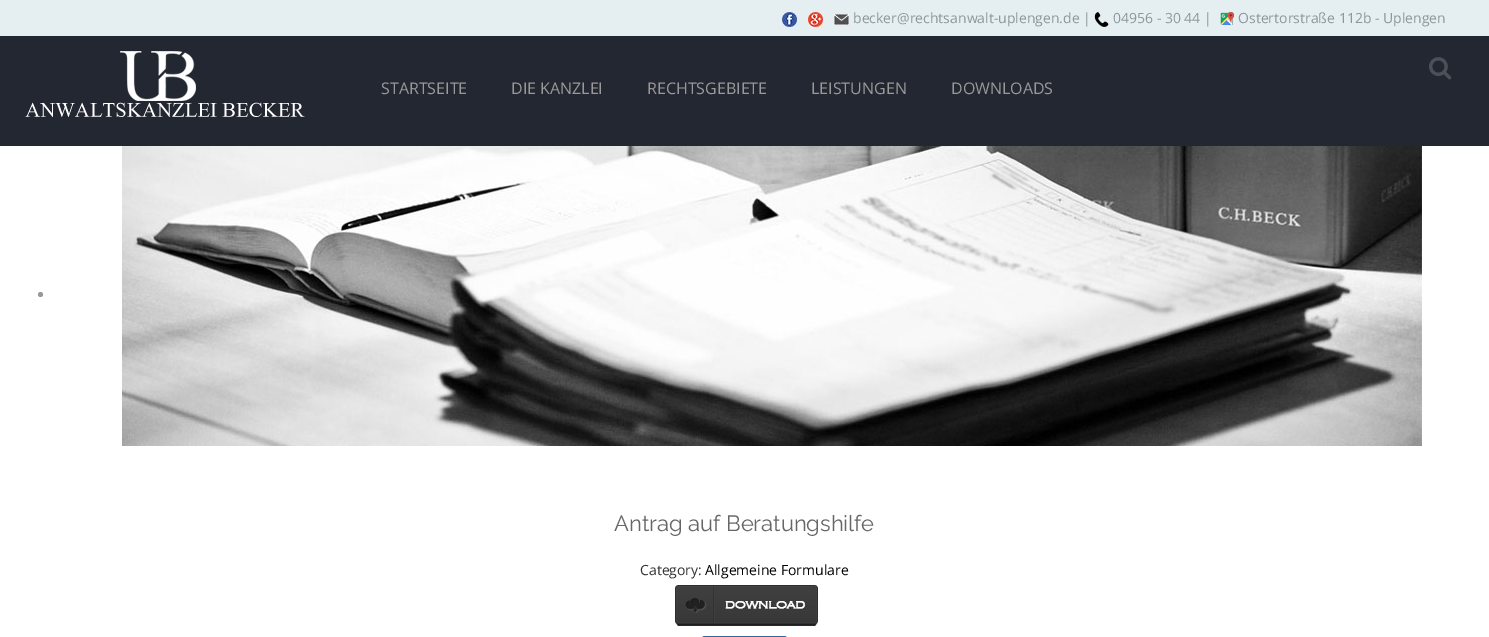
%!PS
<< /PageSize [1489 637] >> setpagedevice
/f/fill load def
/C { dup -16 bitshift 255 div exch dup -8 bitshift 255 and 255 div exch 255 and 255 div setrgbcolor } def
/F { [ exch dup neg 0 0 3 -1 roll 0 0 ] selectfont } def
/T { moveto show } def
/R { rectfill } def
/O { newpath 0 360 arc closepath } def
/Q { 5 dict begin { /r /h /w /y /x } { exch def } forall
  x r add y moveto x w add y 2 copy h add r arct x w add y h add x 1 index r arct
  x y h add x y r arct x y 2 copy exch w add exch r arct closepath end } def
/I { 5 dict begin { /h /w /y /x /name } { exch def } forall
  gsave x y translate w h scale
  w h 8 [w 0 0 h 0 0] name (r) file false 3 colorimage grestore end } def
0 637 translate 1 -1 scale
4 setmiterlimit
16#FFFFFF C
0 0 1489 637 R
16#E5EEF0 C
0 0 1489 36 R
(1.rgb) 782 12 15 15 I
(2.rgb) 808 12 15 15 I
(3.rgb) 834 14 15 11 I
/OpenSans-Regular 14 F
16#8D969A C
(becker@rechtsanwalt-uplengen.de |) 853 23 T
(4.rgb) 1094 12 15 15 I
(04956 - 30 44 |) 1113 23 T
(5.rgb) 1220 12 14 13 I
(Ostertorstraße 112b - Uplengen) 1238 23 T
16#232731 C
0 36 1489 110 R
(6.rgb) 25 51 280 66 I
(7.rgb) 1429 57 23 23 I
/OpenSans-Regular 16 F
16#999999 C
(STARTSEITE) 381 94 T
(DIE KANZLEI) 511 94 T
(RECHTSGEBIETE) 647 94 T
(LEISTUNGEN) 811 94 T
(DOWNLOADS) 951 94 T
40.5 294.5 2.5 O f
(8.rgb) 122 146 1300 300 I
/Raleway-Regular 22 F
16#666666 C
(Antrag auf Beratungshilfe) 614 531 T
/OpenSans-Regular 14 F
16#333333 C
(Category:) 640 575 T
16#000000 C
(Allgemeine Formulare) 705 575 T
(9.rgb) 675 585 143 41 I
16#336699 C
701 636 87 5 4 Q f
showpage
